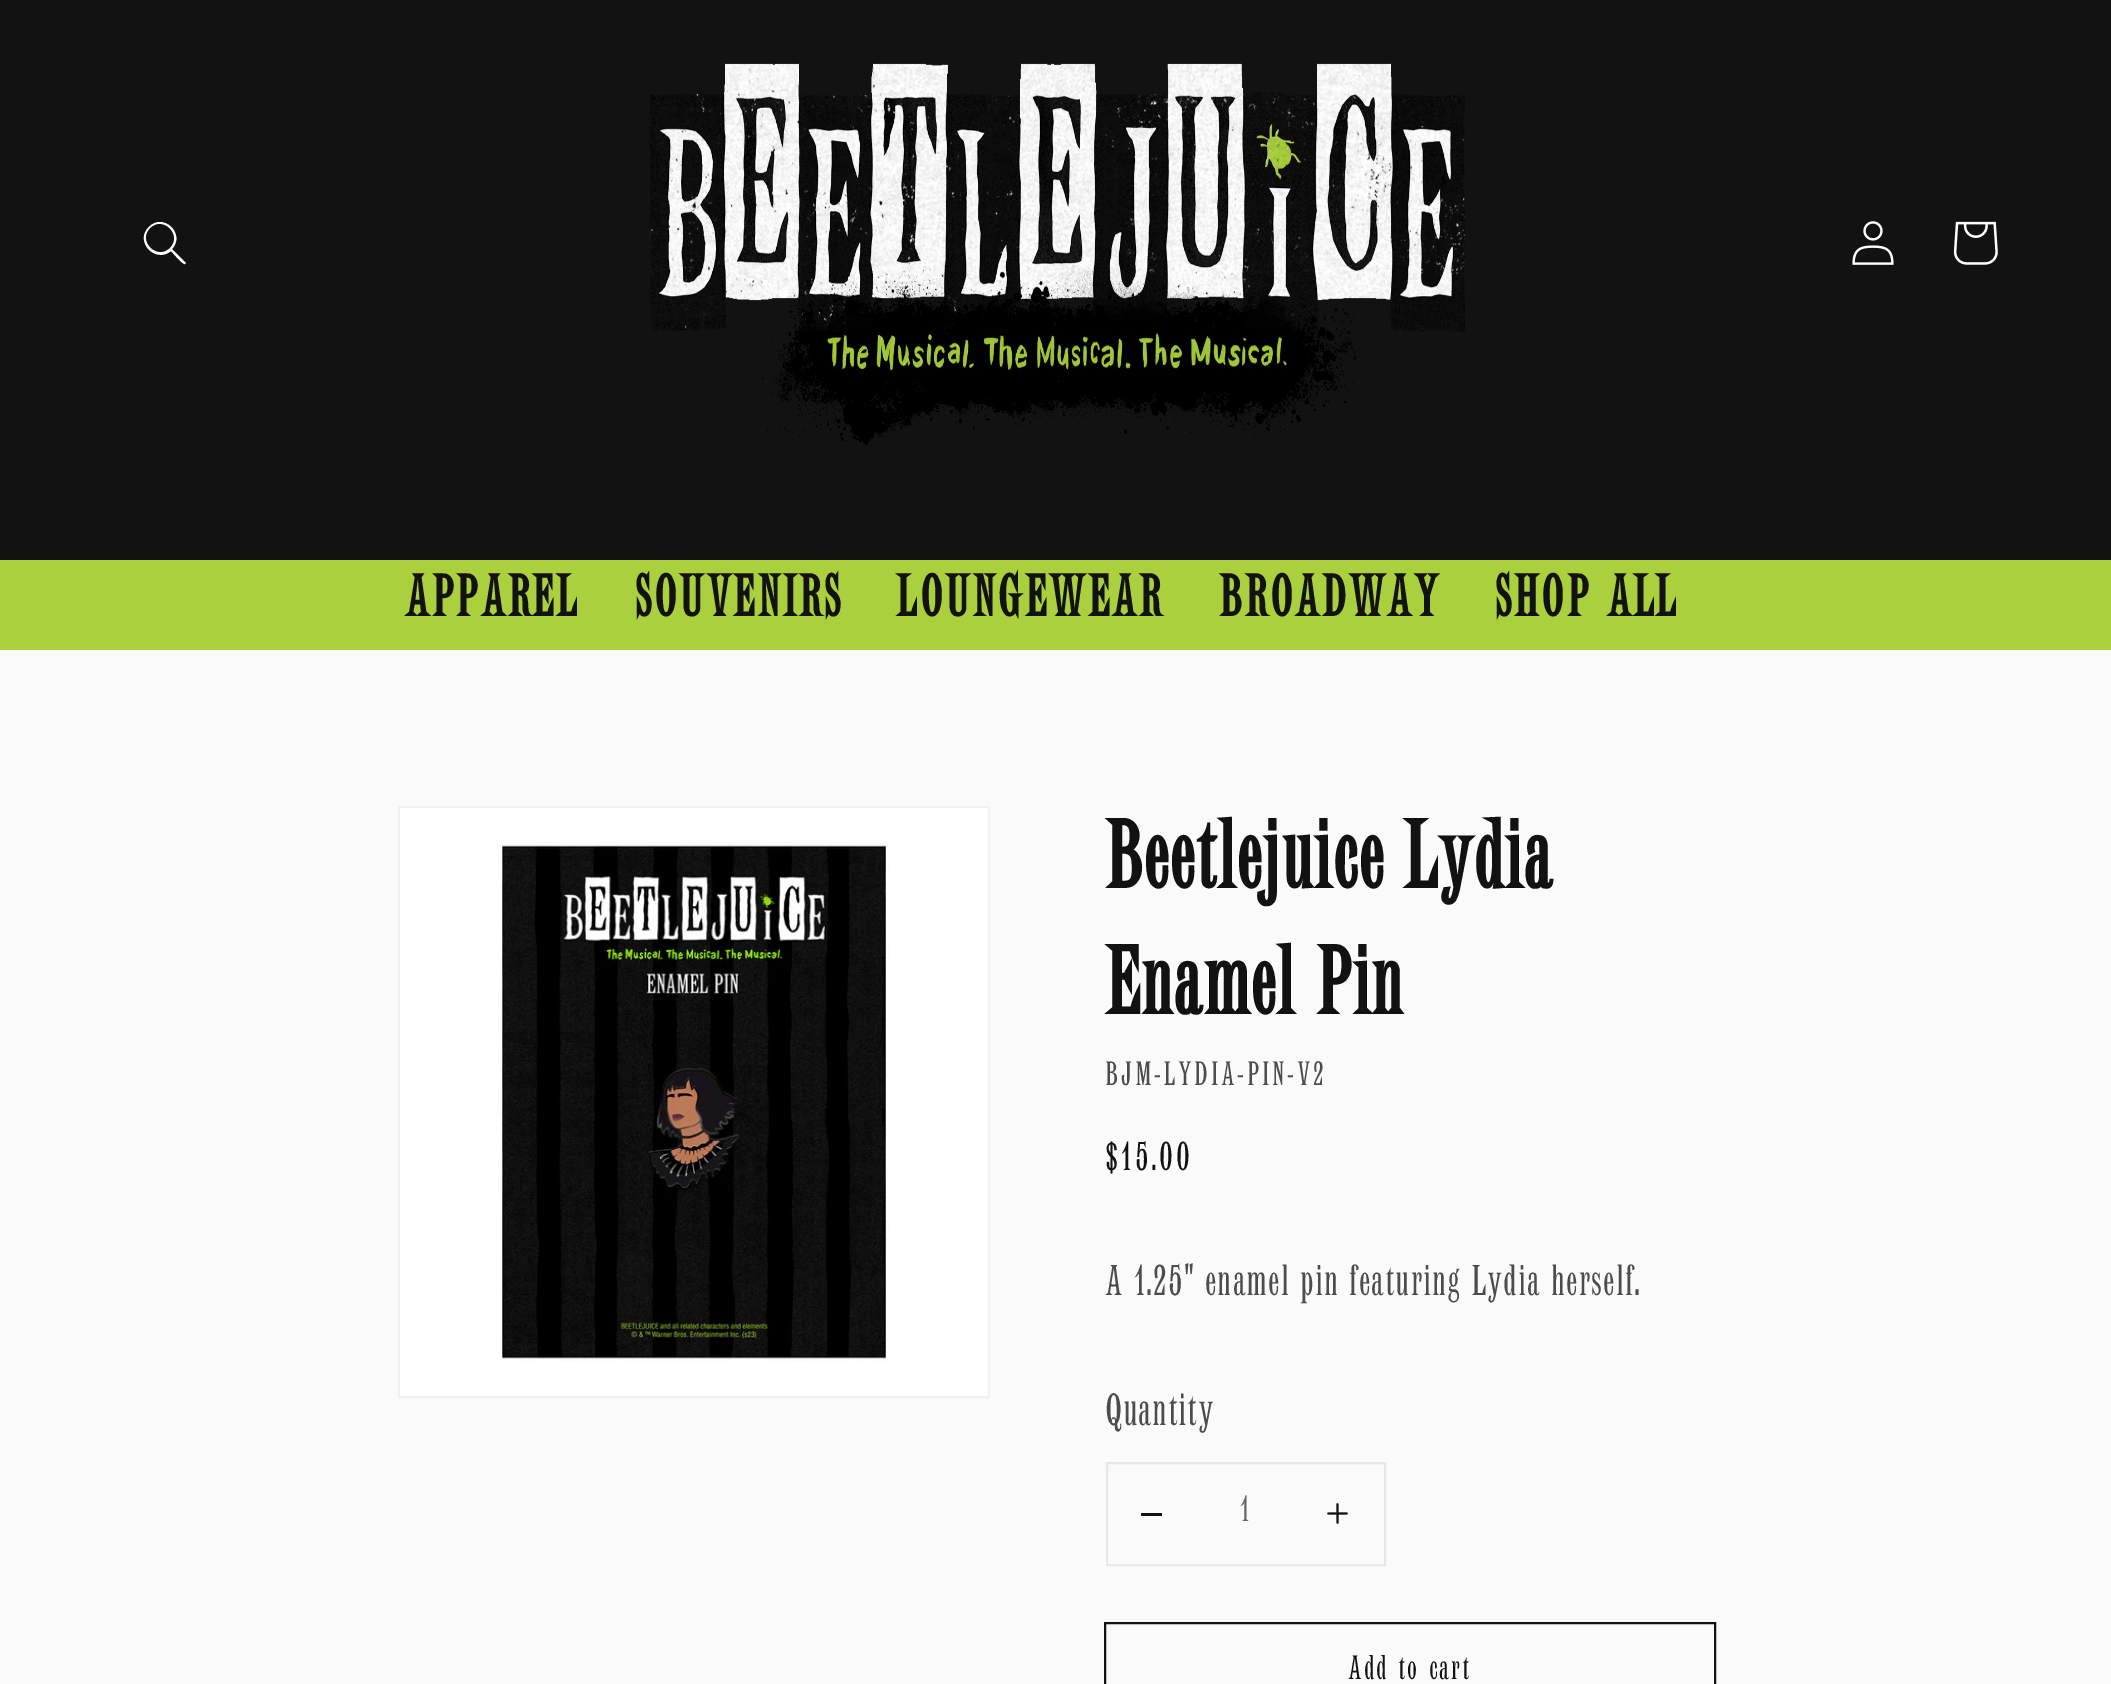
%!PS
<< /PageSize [2111 1684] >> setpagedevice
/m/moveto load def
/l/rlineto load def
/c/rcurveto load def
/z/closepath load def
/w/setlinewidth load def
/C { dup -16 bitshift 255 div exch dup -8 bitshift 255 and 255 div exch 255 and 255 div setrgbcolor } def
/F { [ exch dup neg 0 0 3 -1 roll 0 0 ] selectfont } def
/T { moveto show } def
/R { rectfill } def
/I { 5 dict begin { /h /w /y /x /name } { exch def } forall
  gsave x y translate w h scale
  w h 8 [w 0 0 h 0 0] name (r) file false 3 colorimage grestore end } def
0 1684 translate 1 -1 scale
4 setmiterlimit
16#FAFAFA C
0 0 2111 1684 R
16#121212 C
0 0 2111 560 R
16#FFFFFF C
170 248 m -13 13 -33 -7 -20 -20 c 13 -13 33 7 20 20 c z 171 251 m -16 13 -37 -10 -22 -24 c 14 -15 37 7 23 22 c 14 14 l -1 1 l -2 1 -12 -11 -14 -13 c z eofill
(1.rgb) 649 63 816 384 I
(2.rgb) 1852 221 42 44 I
(3.rgb) 1953 221 45 44 I
16#ABD03E C
0 560 2111 90 R
/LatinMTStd-Bold 60 F
16#121212 C
405 616 m 3.5 0 (APPAREL) ashow
635 616 m 3.5 0 (SOUVENIRS) ashow
897 616 m 3.5 0 (LOUNGEWEAR) ashow
1219 616 m 3.5 0 (BROADWAY) ashow
1495 616 m 3.5 0 (SHOP ALL) ashow
16#F1F1F1 C
2 w
399 807 590 590 rectstroke
(4.rgb) 400 808 588 588 I
/LatinMTStd-Bold 98.5 F
16#121212 C
1105 888 m 1.4 0 (Beetlejuice Lydia) ashow
1105 1014 m 1.4 0 (Enamel Pin) ashow
/LatinMTStd-Regular 34.5 F
16#4C4C4C C
1105 1085 m 3 0 (BJM-LYDIA-PIN-V2) ashow
/LatinMTStd-Regular 41 F
16#121212 C
1105 1170 m 3 0 ($15.00) ashow
/LatinMTStd-Regular 44 F
16#4C4C4C C
1105 1295 m 1.4 0 (A 1.25" enamel pin featuring Lydia herself.) ashow
/LatinMTStd-Regular 46 F
1105 1425 m 1 0 (Quantity) ashow
16#E7E7E7 C
1107 1463 278 102 rectstroke
16#121212 C
1141 1513 21 3 R
/LatinMTStd-Regular 37 F
16#666666 C
(1) 1240 1521 T
(5.rgb) 1327 1503 21 21 I
16#121212 C
1105 1623 610 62 rectstroke
/LatinMTStd-Regular 34.5 F
1348 1679 m 2.25 0 (Add to cart) ashow
showpage
